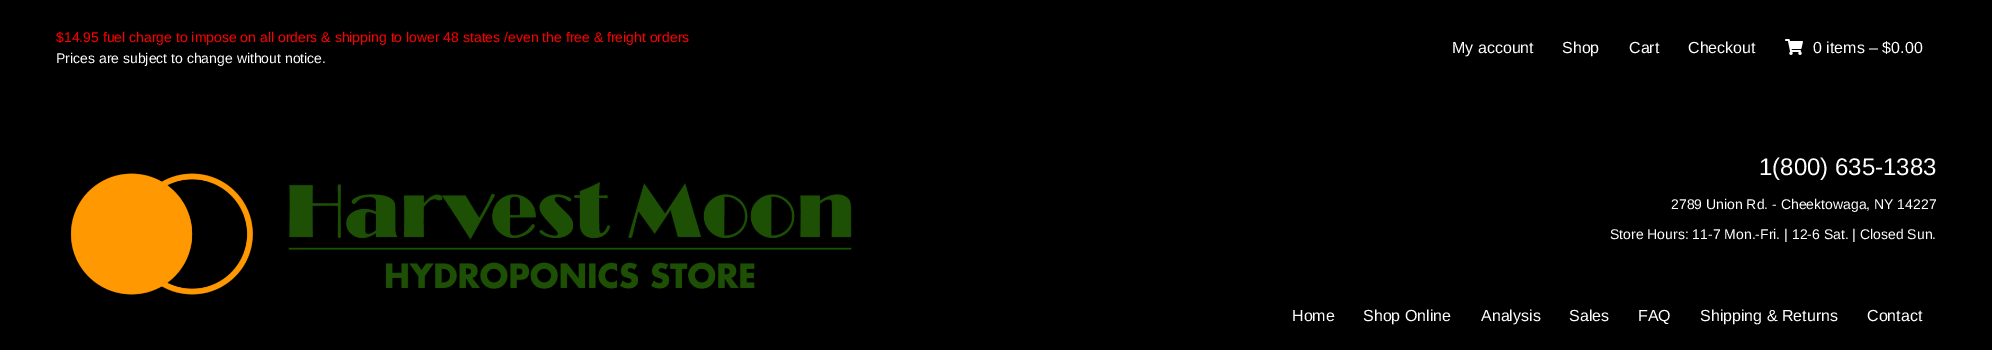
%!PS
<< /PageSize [1992 350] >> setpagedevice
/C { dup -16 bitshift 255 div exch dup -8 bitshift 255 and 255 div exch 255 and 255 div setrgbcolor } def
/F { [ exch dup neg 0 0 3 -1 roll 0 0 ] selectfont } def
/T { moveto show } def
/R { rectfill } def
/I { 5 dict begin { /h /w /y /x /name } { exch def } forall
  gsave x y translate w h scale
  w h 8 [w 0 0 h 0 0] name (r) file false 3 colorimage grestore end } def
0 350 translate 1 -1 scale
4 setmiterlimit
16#000000 C
0 0 1992 350 R
/LiberationSans-Regular 14 F
16#FF0000 C
($14.95 fuel charge to impose on all orders & shipping to lower 48 states /even the free & freight orders) 56 42 T
16#FFFFFF C
(Prices are subject to change without notice.) 56 63 T
/LiberationSans-Regular 16 F
(My account) 1452 53 T
(Shop) 1562 53 T
(Cart) 1629 53 T
(Checkout) 1688 53 T
(1.rgb) 1785 39 18 16 I
(0 items – $0.00) 1813 53 T
(2.rgb) 70 173 782 122 I
/LiberationSans-Regular 24 F
(1\(800\) 635-1383) 1759 175 T
/LiberationSans-Regular 14 F
(2789 Union Rd. - Cheektowaga, NY 14227) 1671 209 T
(Store Hours: 11-7 Mon.-Fri. | 12-6 Sat. | Closed Sun.) 1610 239 T
/LiberationSans-Regular 16 F
(Home) 1292 321 T
(Shop Online) 1363 321 T
(Analysis) 1481 321 T
(Sales) 1569 321 T
(FAQ) 1638 321 T
(Shipping & Returns) 1700 321 T
(Contact) 1867 321 T
showpage
